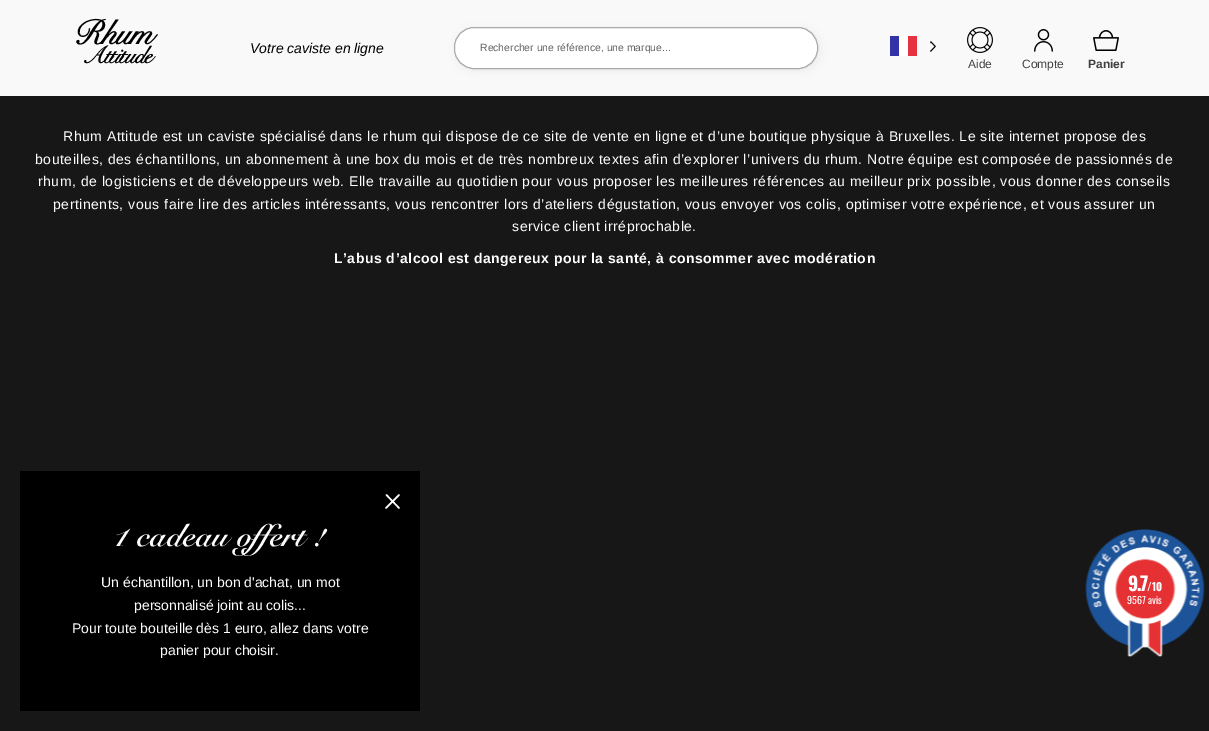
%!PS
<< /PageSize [1209 731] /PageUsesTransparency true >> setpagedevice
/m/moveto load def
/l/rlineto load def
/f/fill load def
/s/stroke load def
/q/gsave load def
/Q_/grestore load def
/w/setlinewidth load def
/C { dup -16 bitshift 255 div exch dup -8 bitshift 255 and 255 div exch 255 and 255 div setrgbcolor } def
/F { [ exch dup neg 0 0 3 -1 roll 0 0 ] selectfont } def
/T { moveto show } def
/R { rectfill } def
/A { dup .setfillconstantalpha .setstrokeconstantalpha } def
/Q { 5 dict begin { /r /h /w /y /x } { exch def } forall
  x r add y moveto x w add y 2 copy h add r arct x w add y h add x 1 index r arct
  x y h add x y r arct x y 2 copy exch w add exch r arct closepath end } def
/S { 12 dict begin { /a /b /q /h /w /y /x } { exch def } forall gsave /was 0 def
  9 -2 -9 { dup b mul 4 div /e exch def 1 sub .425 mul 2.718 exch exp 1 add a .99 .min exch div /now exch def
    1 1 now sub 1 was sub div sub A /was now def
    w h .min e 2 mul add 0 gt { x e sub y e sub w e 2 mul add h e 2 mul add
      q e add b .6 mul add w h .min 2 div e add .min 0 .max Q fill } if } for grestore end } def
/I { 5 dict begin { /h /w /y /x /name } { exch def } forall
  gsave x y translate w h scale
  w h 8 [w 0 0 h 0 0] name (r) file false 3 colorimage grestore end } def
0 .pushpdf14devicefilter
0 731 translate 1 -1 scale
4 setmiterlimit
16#171717 C
0 0 1209 731 R
16#F9F9F9 C
0 0 1209 96 R
/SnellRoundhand-Bold 34 F
16#000000 C
73 44 m -1 0 (Rhum) ashow
/SnellRoundhand-Bold 24 F
82 63 m -1 0 (Attitude) ashow
/LiberationSans-Italic 14 F
(Votre caviste en ligne) 250 53 T
456 29 364 42 20 5 .05 S
16#FFFFFF C
454.5 27.5 363 41 19.5 Q q f Q_
16#AAAAAA C
s
/LiberationSans-Regular 10.4 F
16#616161 C
(Rechercher une référence, une marque...) 480 51 T
16#FFFFFF C
899 36 9 20 R
16#000091 C
890 36 9 20 R
16#E1000F C
908 36 9 20 R
0.2 A
16#FFFFFF C
890 36 27 20 R
1 A
(1.rgb) 930 41 6 11 I
(2.rgb) 967 27 26 26 I
/LiberationSans-Regular 12 F
16#404040 C
(Aide) 968 68 T
(3.rgb) 1034 29 19 23 I
(Compte) 1022 68 T
(4.rgb) 1093 30 26 21 I
/LiberationSans-Bold 12 F
(Panier) 1088 68 T
/LiberationSans-Regular 14 F
16#FDFDFD C
63 141 m .5 0 (Rhum Attitude est un caviste spécialisé dans le rhum qui dispose de ce site de vente en ligne et d’une boutique physique à Bruxelles. Le site internet propose des) ashow
35 164 m .5 0 (bouteilles, des échantillons, un abonnement à une box du mois et de très nombreux textes afin d’explorer l’univers du rhum. Notre équipe est composée de passionnés de) ashow
38 186 m .5 0 (rhum, de logisticiens et de développeurs web. Elle travaille au quotidien pour vous proposer les meilleures références au meilleur prix possible, vous donner des conseils) ashow
53 209 m .5 0 (pertinents, vous faire lire des articles intéressants, vous rencontrer lors d’ateliers dégustation, vous envoyer vos colis, optimiser votre expérience, et vous assurer un) ashow
512 231 m .5 0 (service client irréprochable.) ashow
/LiberationSans-Bold 14 F
334 263 m .5 0 (L’abus d’alcool est dangereux pour la santé, à consommer avec modération) ashow
16#000000 C
20 471 400 240 R
16#FFFFFF C
1.5 w
1 setlinecap
386.5 495 m 12.5 13 l 386 508 m 13 -13 l s
/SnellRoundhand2-Bold 32 F
16#FDFDFD C
(1 cadeau offert !) 115 546 T
/LiberationSans-Regular 14 F
(Un échantillon, un bon d'achat, un mot) 101 587 T
(personnalisé joint au colis...) 134 610 T
(Pour toute bouteille dès 1 euro, allez dans votre) 72 633 T
(panier pour choisir.) 160 655 T
(5.rgb) 1085 529 120 128 I
/Oswald-Bold 19 F
1128 591 m -1.5 0 (9.7) ashow
/Oswald-Bold 11 F
(/10) 1147 591 T
/Oswald-Regular 10 F
(9567 avis) 1127 604 T
.poppdf14devicefilter showpage
